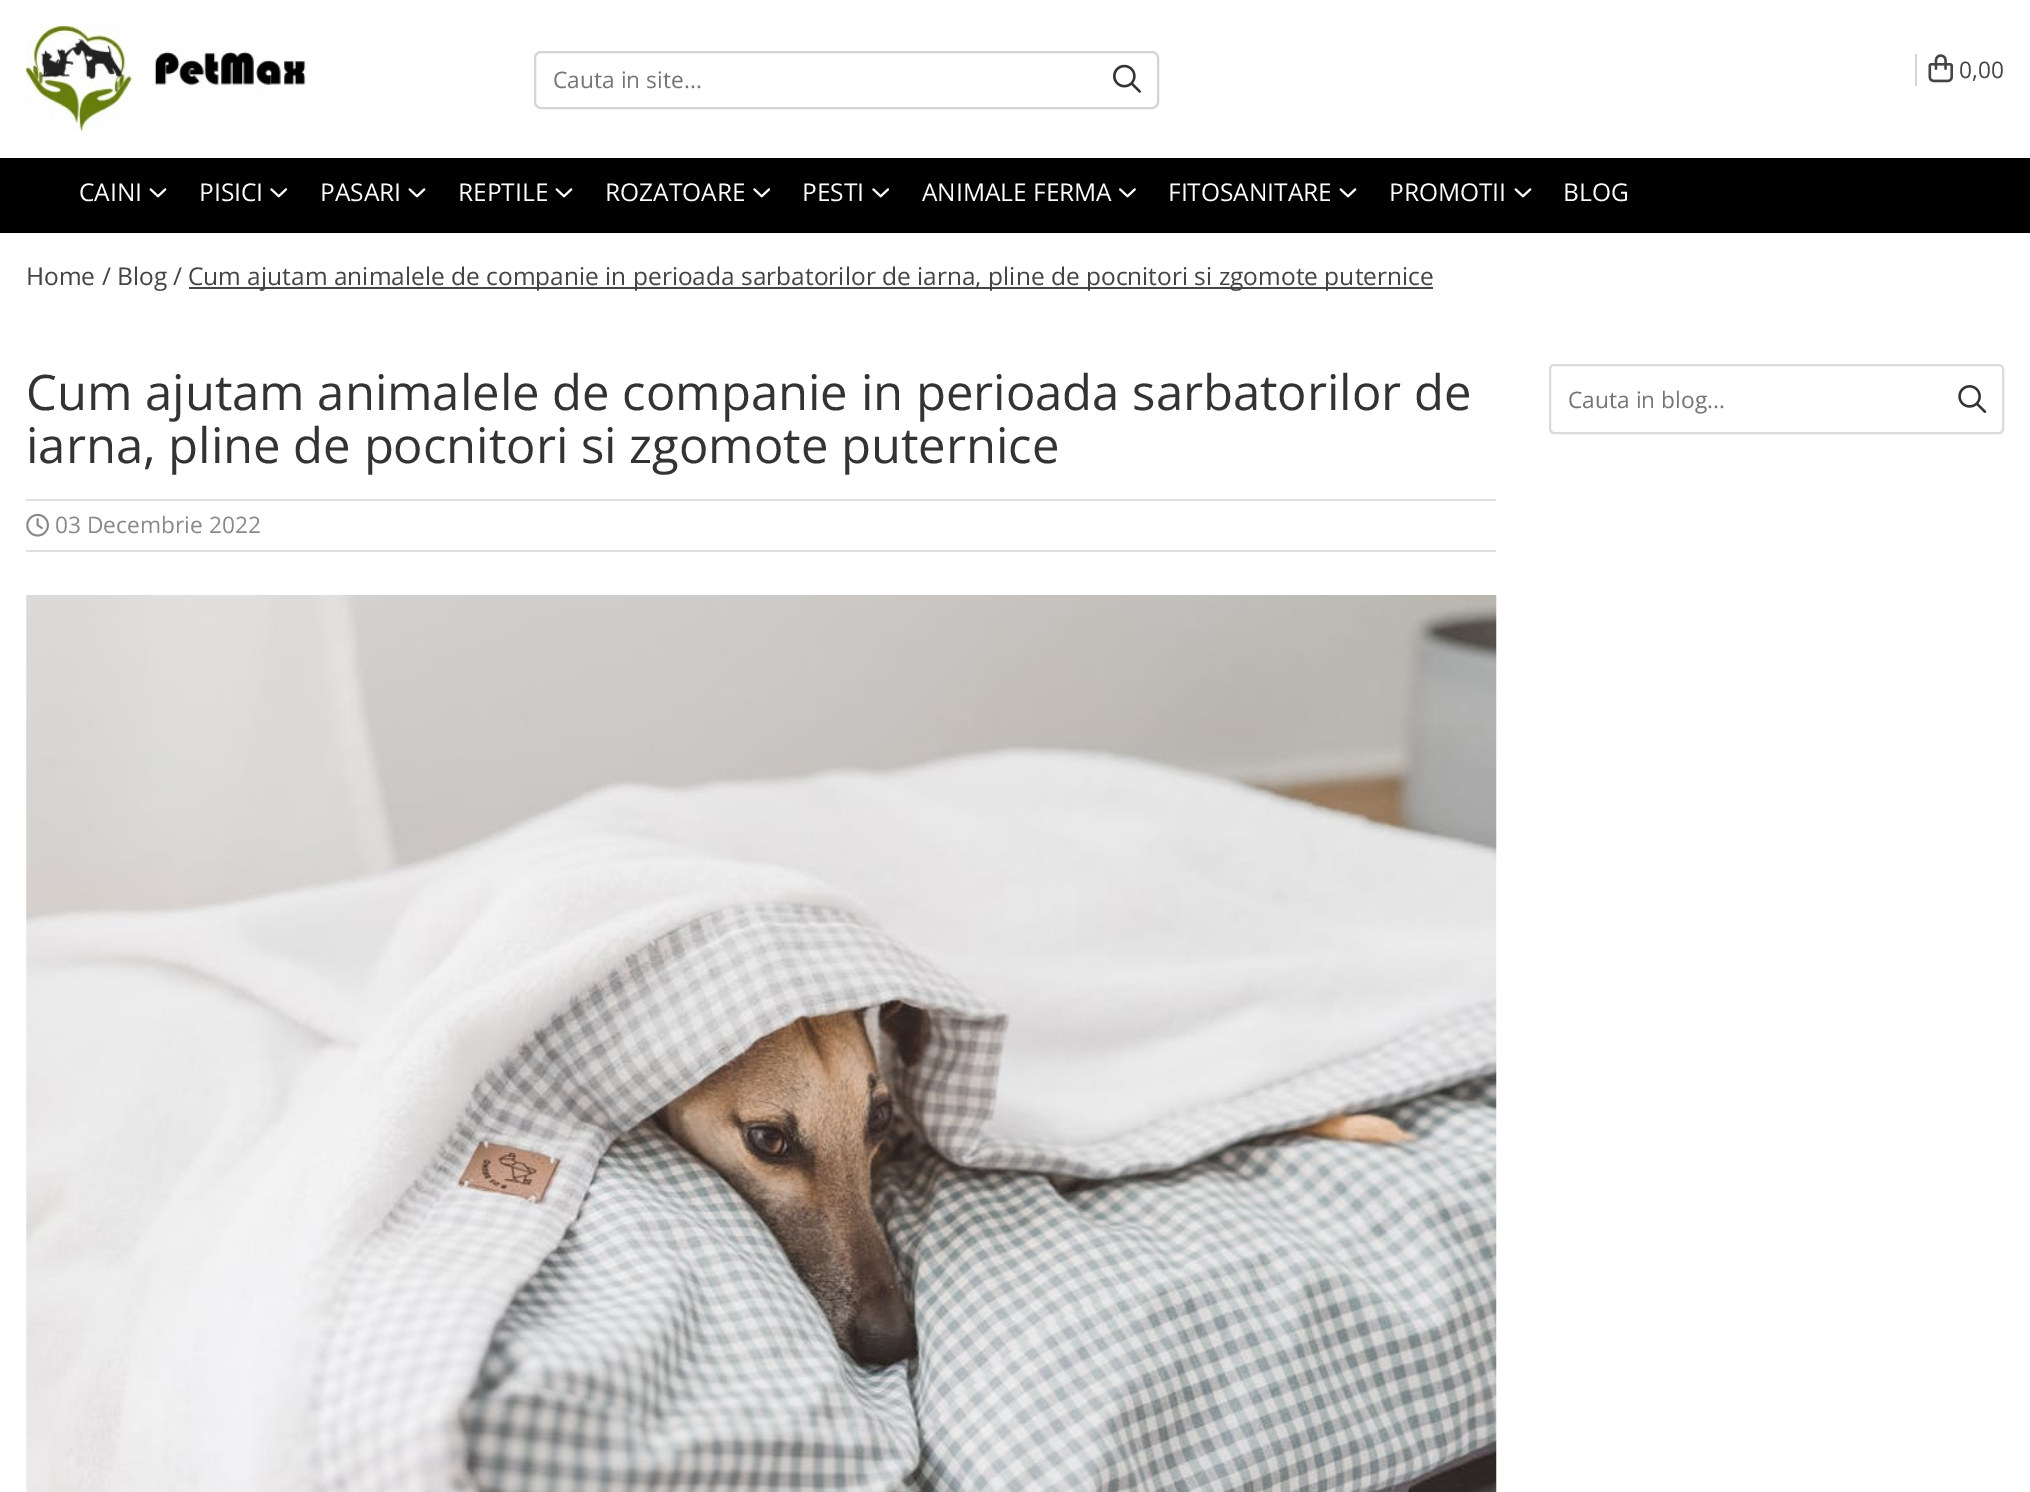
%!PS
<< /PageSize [2030 1492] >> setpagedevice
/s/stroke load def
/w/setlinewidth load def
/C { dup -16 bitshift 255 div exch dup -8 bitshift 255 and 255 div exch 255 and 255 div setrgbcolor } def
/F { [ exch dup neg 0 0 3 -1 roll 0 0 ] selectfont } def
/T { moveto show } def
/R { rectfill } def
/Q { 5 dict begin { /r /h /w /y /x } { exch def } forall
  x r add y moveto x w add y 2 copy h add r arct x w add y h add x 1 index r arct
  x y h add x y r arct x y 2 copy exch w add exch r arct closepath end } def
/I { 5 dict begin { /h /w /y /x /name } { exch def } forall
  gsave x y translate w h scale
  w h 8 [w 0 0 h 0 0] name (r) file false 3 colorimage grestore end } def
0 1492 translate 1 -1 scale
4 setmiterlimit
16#FFFFFF C
0 0 2030 1492 R
(1.rgb) 26 26 280 106 I
16#D5D5D5 C
2 w
535 52 623 56 6 Q s
/OpenSans-Regular 22.75 F
16#757575 C
(Cauta in site...) 553 88 T
(2.rgb) 1113 64 28 29 I
16#D5D5D5 C
1915 54 2 32 R
(3.rgb) 1928 54 25 29 I
16#444444 C
(0,00) 1959 78 T
16#000000 C
0 158 2030 75 R
/OpenSans-Regular 24.5 F
16#FFFFFF C
(CAINI) 79 201 T
(4.rgb) 149 188 18 10 I
(PISICI) 199 201 T
(5.rgb) 270 188 18 10 I
(PASARI) 320 201 T
(4.rgb) 408 188 18 10 I
(REPTILE) 458 201 T
(4.rgb) 555 188 18 10 I
(ROZATOARE) 605 201 T
(5.rgb) 753 188 18 10 I
(PESTI) 802 201 T
(5.rgb) 872 188 18 10 I
(ANIMALE FERMA) 922 201 T
(6.rgb) 1119 188 17 10 I
(FITOSANITARE) 1168 201 T
(4.rgb) 1339 188 18 10 I
(PROMOTII) 1389 201 T
(4.rgb) 1514 188 18 10 I
(BLOG) 1563 201 T
16#444444 C
(Home /) 26 285 T
(Blog /) 117 285 T
189 287 1244 2 R
(Cum ajutam animalele de companie in perioada sarbatorilor de iarna, pline de pocnitori si zgomote puternice) 188 285 T
/OpenSans-Regular 49 F
16#333333 C
(Cum ajutam animalele de companie in perioada sarbatorilor de) 26 410 T
(iarna, pline de pocnitori si zgomote puternice) 26 463 T
16#E0DEDE C
26 499 1470 2 R
26 550 1470 2 R
(7.rgb) 26 513 23 24 I
/OpenSans-Regular 22.75 F
16#888888 C
(03 Decembrie 2022) 55 533 T
(8.rgb) 26 595 1471 897 I
16#DBDBDB C
1550 365 453 68 4 Q s
16#757575 C
(Cauta in blog...) 1568 408 T
(9.rgb) 1958 385 29 28 I
showpage
